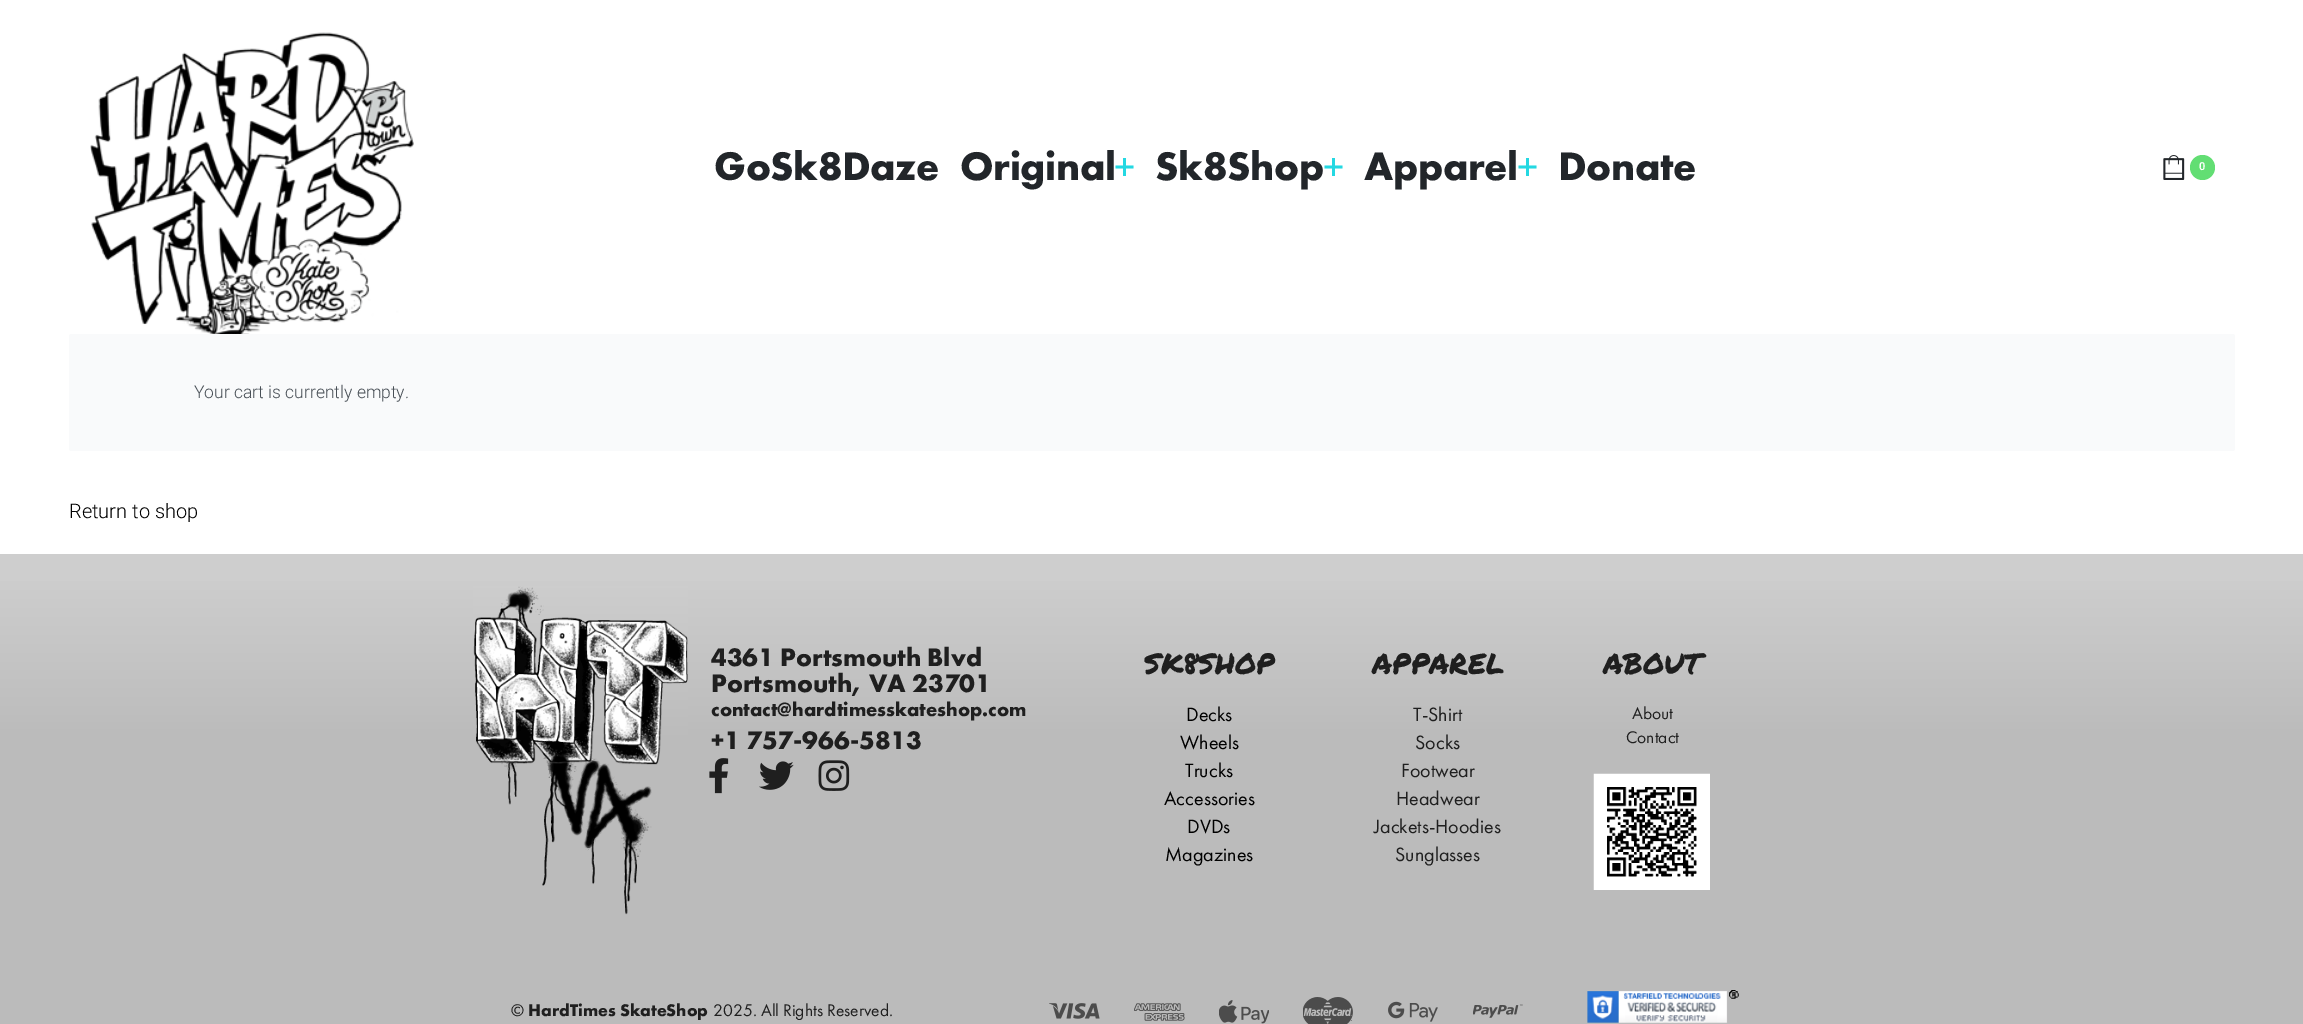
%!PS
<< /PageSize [2303 1024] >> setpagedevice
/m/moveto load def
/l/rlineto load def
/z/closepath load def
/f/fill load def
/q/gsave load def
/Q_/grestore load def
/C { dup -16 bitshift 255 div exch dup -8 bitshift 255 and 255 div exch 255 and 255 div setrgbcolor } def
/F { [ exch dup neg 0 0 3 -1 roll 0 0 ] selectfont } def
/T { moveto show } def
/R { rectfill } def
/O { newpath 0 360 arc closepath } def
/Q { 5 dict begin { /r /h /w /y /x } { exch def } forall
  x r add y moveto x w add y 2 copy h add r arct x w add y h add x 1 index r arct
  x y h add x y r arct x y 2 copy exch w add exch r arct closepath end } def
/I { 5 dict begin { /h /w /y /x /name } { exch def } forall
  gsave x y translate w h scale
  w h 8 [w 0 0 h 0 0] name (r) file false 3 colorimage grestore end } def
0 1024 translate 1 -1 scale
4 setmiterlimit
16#FFFFFF C
0 0 2303 1024 R
(1.rgb) 90 32 324 302 I
/FuturaPT-Bold 41.25 F
16#22262A C
714 180 m -.4 0 (GoSk8Daze) ashow
960 180 m -.4 0 (Original) ashow
/DejaVuSansMono-Regular 35 F
16#24D8E2 C
1114 178 m -.4 0 (+) ashow
/FuturaPT-Bold 41.25 F
16#22262A C
1155 180 m -.4 0 (Sk8Shop) ashow
/DejaVuSansMono-Regular 35 F
16#24D8E2 C
1323 178 m -.4 0 (+) ashow
/FuturaPT-Bold 41.25 F
16#22262A C
1364 180 m -.4 0 (Apparel) ashow
/DejaVuSansMono-Regular 35 F
16#24D8E2 C
1517 178 m -.4 0 (+) ashow
/FuturaPT-Bold 41.25 F
16#22262A C
1558 180 m -.4 0 (Donate) ashow
(2.rgb) 2163 155 22 25 I
16#62DE73 C
2202.5 167.5 12.5 O f
/Roboto-SemiBold 11 F
16#FFFFFF C
(0) 2199 170 T
16#F9FAFB C
69 334 2166 117 2.5 Q f
/Roboto-Light 17.5 F
16#484F56 C
(Your cart is currently empty.) 194 398 T
/Roboto-Light 20 F
16#000000 C
(Return to shop) 69 518 T
q 0 554 m 2303 0 l 0 430 l -2303 0 l z clip newpath
<< /ShadingType 2 /ColorSpace /DeviceRGB /Coords [1152 554 1152 984] /Extend [true true] /Function << /FunctionType 3 /Domain [0 1] /Functions [<< /FunctionType 2 /Domain [0 1] /C0 [.808 .808 .808] /C1 [.808 .808 .808] /N 1 >> << /FunctionType 2 /Domain [0 1] /C0 [.808 .808 .808] /C1 [.733 .733 .733] /N 1 >> << /FunctionType 2 /Domain [0 1] /C0 [.733 .733 .733] /C1 [.733 .733 .733] /N 1 >>] /Bounds [.05 .43] /Encode [0 1 0 1 0 1] >> >> shfill Q_
(3.rgb) 473 586 215 329 I
/FuturaPT-Bold 26.25 F
16#1F1F1F C
(4361 Portsmouth Blvd) 711 666 T
(Portsmouth, VA 23701) 711 692 T
/FuturaPT-Bold 20 F
(contact@hardtimesskateshop.com) 711 716 T
/FuturaPT-Bold 26.25 F
(+1 757-966-5813) 711 749 T
(4.rgb) 709 758 20 36 I
(5.rgb) 759 761 35 29 I
(6.rgb) 818 760 32 31 I
/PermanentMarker-Regular 28.75 F
(SK8SHOP) 1144 674 T
/FuturaPT-Regular 20 F
16#000000 C
(Decks) 1186 721 T
(Wheels) 1180 749 T
(Trucks) 1185 777 T
(Accessories) 1164 805 T
(DVDs) 1187 833 T
(Magazines) 1165 861 T
/PermanentMarker-Regular 28.75 F
16#1F1F1F C
(APPAREL) 1372 674 T
/FuturaPT-Regular 20 F
(T-Shirt) 1413 721 T
(Socks) 1415 749 T
(Footwear) 1401 777 T
(Headwear) 1396 805 T
(Jackets-Hoodies) 1374 833 T
(Sunglasses) 1395 861 T
/PermanentMarker-Regular 28.75 F
(ABOUT) 1603 674 T
/FuturaPT-Regular 17.5 F
(About) 1632 719 T
(Contact) 1626 743 T
(7.rgb) 1593 773 117 117 I
16#BBBBBB C
0 984 2303 40 R
16#1F1F1F C
(©) 511 1016 T
/FuturaPT-Bold 17.5 F
(HardTimes SkateShop) 528 1016 T
/FuturaPT-Regular 17.5 F
(2025. All Rights Reserved.) 713 1016 T
(8.rgb) 1049 1003 51 16 I
(9.rgb) 1134 1003 51 18 I
(10.rgb) 1219 1000 50 24 I
(11.rgb) 1303 997 50 27 I
(12.rgb) 1388 1001 50 21 I
(13.rgb) 1473 1004 50 14 I
(14.rgb) 1587 990 152 33 I
showpage
